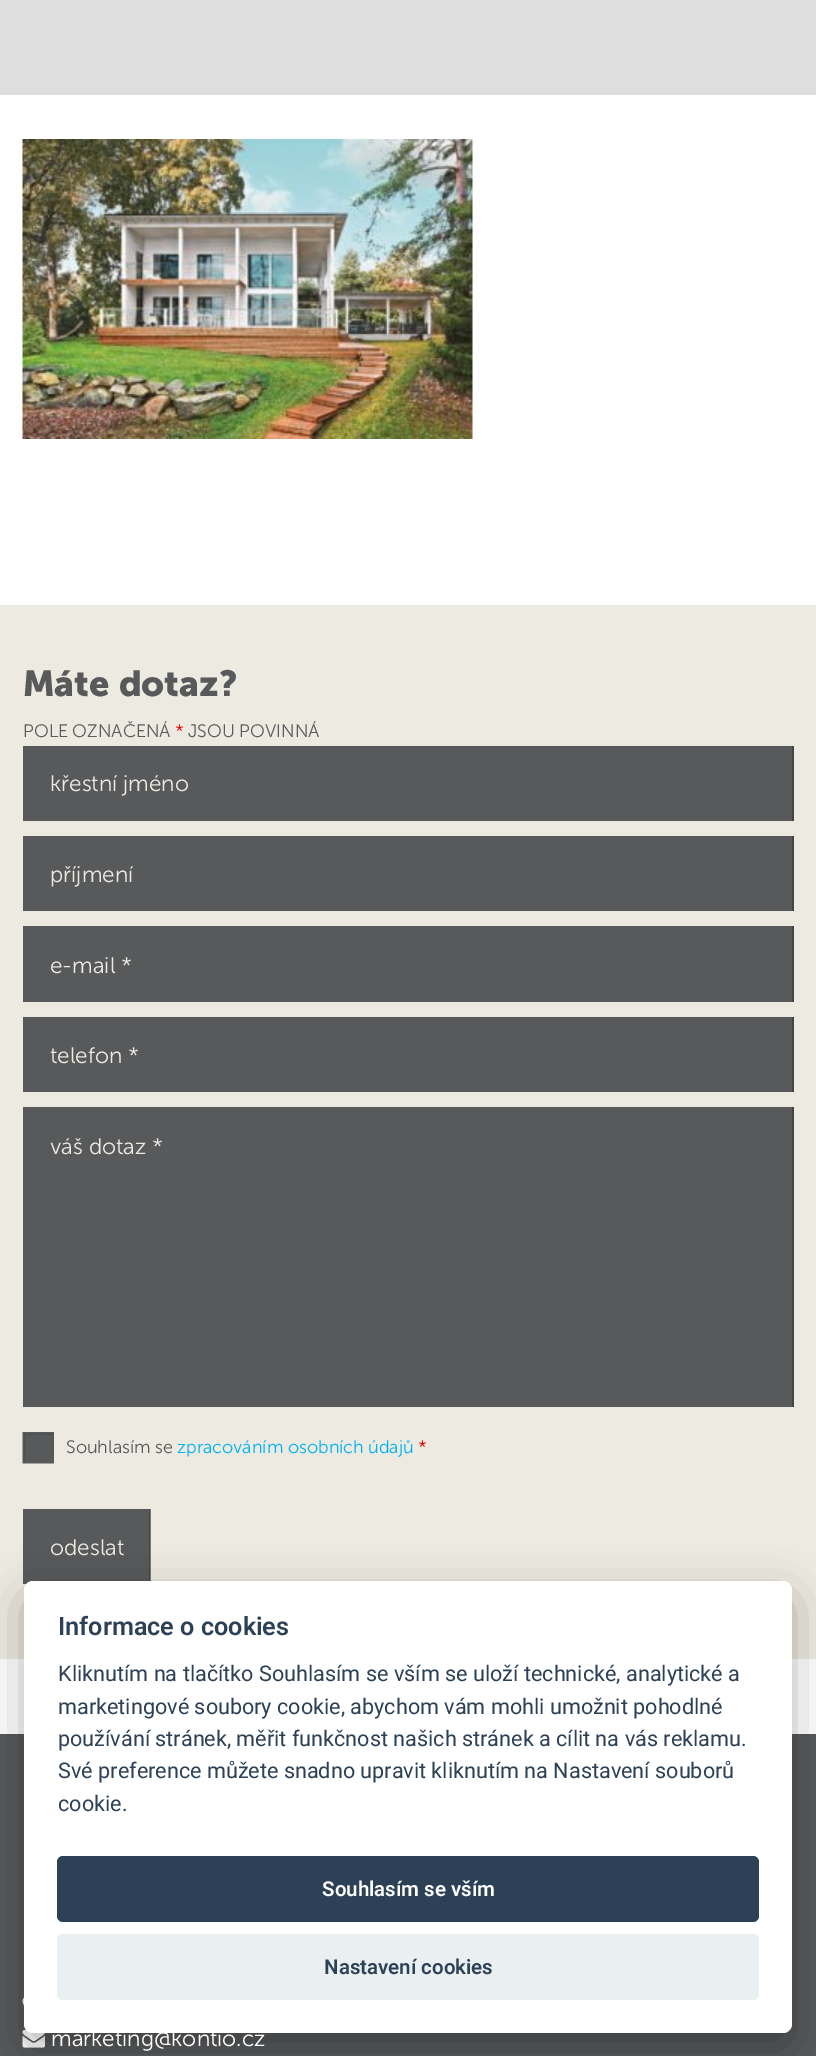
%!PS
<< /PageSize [816 2056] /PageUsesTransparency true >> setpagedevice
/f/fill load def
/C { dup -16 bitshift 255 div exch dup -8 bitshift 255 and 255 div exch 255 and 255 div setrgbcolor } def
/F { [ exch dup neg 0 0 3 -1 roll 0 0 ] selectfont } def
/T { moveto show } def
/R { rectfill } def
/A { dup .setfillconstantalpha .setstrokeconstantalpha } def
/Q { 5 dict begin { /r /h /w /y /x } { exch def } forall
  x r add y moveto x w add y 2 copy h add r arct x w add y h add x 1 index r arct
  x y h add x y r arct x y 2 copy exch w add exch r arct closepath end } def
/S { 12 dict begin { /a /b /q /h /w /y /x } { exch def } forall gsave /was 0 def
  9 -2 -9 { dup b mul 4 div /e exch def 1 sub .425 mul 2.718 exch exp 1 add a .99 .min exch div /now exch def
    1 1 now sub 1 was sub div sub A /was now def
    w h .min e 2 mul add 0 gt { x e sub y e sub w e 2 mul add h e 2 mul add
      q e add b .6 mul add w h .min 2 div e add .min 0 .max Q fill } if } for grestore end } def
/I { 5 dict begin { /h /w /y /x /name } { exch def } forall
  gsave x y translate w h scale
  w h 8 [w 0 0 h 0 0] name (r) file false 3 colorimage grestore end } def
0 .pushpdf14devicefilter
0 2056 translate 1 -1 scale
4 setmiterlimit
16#FFFFFF C
0 0 816 2056 R
16#DEDEDE C
0 0 816 95 R
(1.rgb) 22 139 451 300 I
16#EDEAE1 C
0 605 816 1054 R
16#7F7E7A C
150 1509 1 75 R
/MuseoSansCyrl-Bold 36 F
16#58595B C
(Máte dotaz?) 23 696 T
/MuseoSansCyrl-Light 18 F
(POLE OZNAČENÁ) 23 737 T
16#E80000 C
(*) 175 737 T
16#58595B C
(JSOU POVINNÁ) 188 737 T
23 746 769 75 R
16#444445 C
792 746 2 75 R
/MuseoSansCyrl-Light 22.5 F
16#EDEAE1 C
(křestní jméno) 50 791 T
16#58595B C
23 836 769 75 R
16#444445 C
792 836 2 75 R
16#EDEAE1 C
(příjmení) 50 882 T
16#58595B C
23 926 769 76 R
16#444445 C
792 926 2 76 R
16#EDEAE1 C
(e-mail *) 50 973 T
16#58595B C
23 1017 769 75 R
16#444445 C
792 1017 2 75 R
16#EDEAE1 C
(telefon *) 50 1063 T
16#58595B C
23 1107 769 300 R
16#444445 C
792 1107 2 300 R
16#EDEAE1 C
(váš dotaz *) 50 1154 T
(2.rgb) 22 1432 32 32 I
/MuseoSansCyrl-Light 18 F
16#58595B C
(Souhlasím se) 66 1453 T
16#00B3F0 C
(zpracováním osobních údajů) 177 1453 T
16#E80000 C
(*) 418 1453 T
16#58595B C
23 1509 126 75 R
16#444445 C
149 1509 1 75 R
/MuseoSansCyrl-Light 22.5 F
16#EDEAE1 C
(odeslat) 50 1555 T
16#58595B C
0 1734 816 322 R
(3.rgb) 22 1997 2 9 I
(4.rgb) 22 2029 23 19 I
16#020203 C
24 1596 768 452 9 22.5 .28 S
16#FFFFFF C
24 1581 768 452 9 Q f
/Roboto-SemiBold 25.25 F
16#2D4156 C
(Informace o cookies) 58 1635 T
/Roboto-Regular 21.6 F
(Kliknutím na tlačítko Souhlasím se vším se uloží technické, analytické a) 58 1681 T
(marketingové soubory cookie, abychom vám mohli umožnit pohodlné) 58 1714 T
(používání stránek, měřit funkčnost našich stránek a cílit na vás reklamu.) 58 1746 T
(Své preference můžete snadno upravit kliknutím na Nastavení souborů) 58 1778 T
(cookie.) 58 1811 T
57 1856 702 66 6 Q f
/Roboto-SemiBold 20.5 F
16#FFFFFF C
(Souhlasím se vším) 322 1896 T
16#EAEFF2 C
57 1934 702 66 6 Q f
16#2D4156 C
(Nastavení cookies) 324 1974 T
/MuseoSansCyrl-Light 22.5 F
16#FFFFFF C
(marketing@kontio.cz) 51 2046 T
.poppdf14devicefilter showpage
